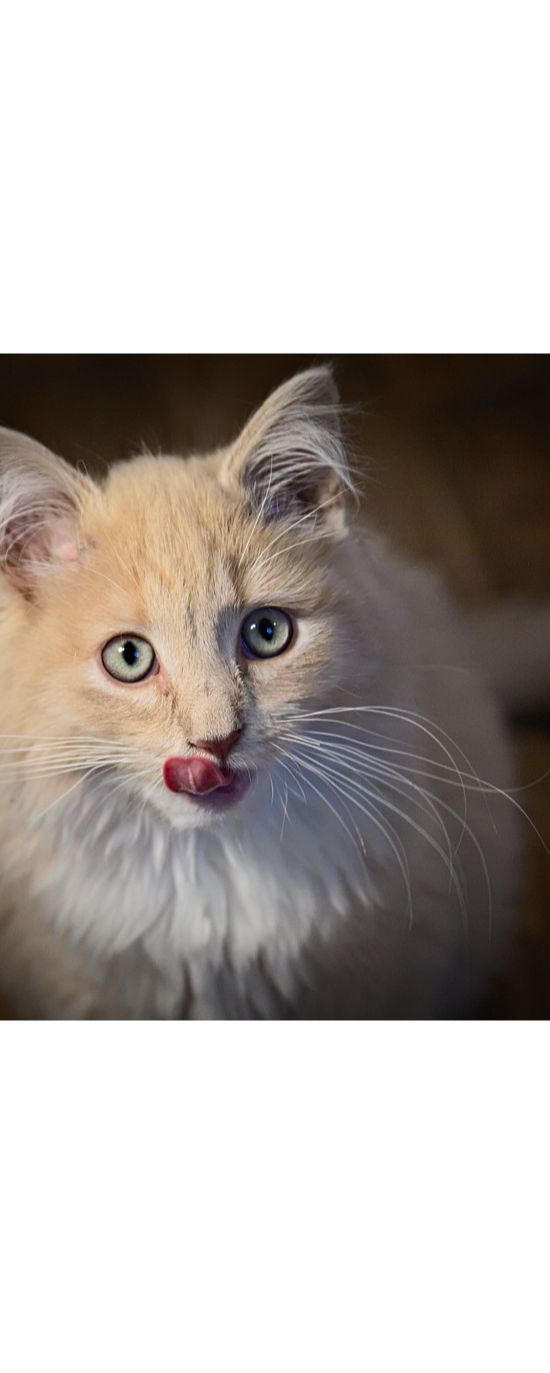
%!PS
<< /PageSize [550 1373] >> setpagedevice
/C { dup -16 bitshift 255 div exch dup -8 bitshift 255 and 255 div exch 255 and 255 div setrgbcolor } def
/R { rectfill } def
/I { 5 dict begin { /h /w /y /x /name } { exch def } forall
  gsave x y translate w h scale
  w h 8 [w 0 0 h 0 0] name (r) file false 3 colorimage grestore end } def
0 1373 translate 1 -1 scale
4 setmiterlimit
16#FFFFFF C
0 0 550 1373 R
(1.rgb) 0 353 550 668 I
showpage
